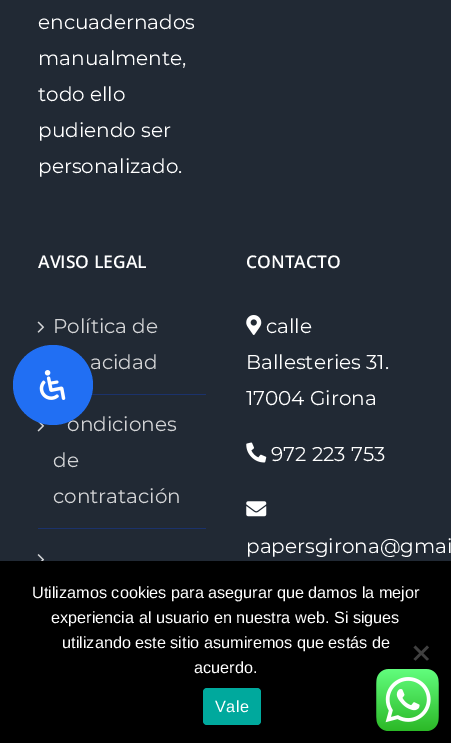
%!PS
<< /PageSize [451 743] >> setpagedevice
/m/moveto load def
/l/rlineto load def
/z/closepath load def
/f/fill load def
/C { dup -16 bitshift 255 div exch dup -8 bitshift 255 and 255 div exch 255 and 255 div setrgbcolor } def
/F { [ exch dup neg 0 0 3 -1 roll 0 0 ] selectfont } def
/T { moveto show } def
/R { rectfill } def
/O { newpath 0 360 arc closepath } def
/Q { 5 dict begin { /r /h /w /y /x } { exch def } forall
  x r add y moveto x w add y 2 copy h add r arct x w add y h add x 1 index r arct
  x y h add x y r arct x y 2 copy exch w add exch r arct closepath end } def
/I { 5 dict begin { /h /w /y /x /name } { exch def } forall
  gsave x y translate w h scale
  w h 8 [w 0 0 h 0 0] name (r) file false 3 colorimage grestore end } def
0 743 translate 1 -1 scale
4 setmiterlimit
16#212934 C
0 0 451 743 R
/Montserrat-Regular 20 F
16#FFFFFF C
(encuadernados) 38 29 T
(manualmente,) 38 65 T
(todo ello) 38 101 T
(pudiendo ser) 38 137 T
(personalizado.) 38 173 T
/OpenSans-SemiBold 17.5 F
(AVISO LEGAL) 38 268 T
16#1B326B C
91 394 115 1 R
(1.rgb) 37 321 8 12 I
/Montserrat-Regular 20 F
16#D3D4D6 C
(Política de) 53 333 T
(acidad) 90 369 T
16#1B326B C
38 528 168 1 R
(2.rgb) 37 421 8 11 I
16#D3D4D6 C
(ondiciones) 67 431 T
(de) 53 467 T
(contratación) 53 503 T
(3.rgb) 37 554 8 7 I
/OpenSans-SemiBold 17.5 F
16#FFFFFF C
(CONTACTO) 246 268 T
(4.rgb) 246 315 16 20 I
/Montserrat-Regular 20 F
(calle) 266 333 T
(Ballesteries 31.) 246 369 T
(17004 Girona) 246 405 T
(5.rgb) 246 442 21 21 I
(972 223 753) 271 461 T
(6.rgb) 246 501 21 16 I
(papersgirona@gmai) 246 553 T
16#216FF3 C
53 385 40 O f
(7.rgb) 39 370 27 30 I
16#000000 C
0 561 451 182 R
/LiberationSans-Regular 16.25 F
16#FFFFFF C
(Utilizamos cookies para asegurar que damos la mejor) 32 598 T
(experiencia al usuario en nuestra web. Si sigues) 51 623 T
(utilizando este sitio asumiremos que estás de) 62 648 T
(acuerdo.) 194 673 T
16#404040 C
427 645.5 m 2 2 l -13.5 13 l -2 -1.5 l z f
413.5 647.5 m 2 -2 l 13.5 13.5 l -2 1.5 l z f
16#00A99D C
203 688 58 37 4 Q f
16#FFFFFF C
215 712 m .5 0 (Vale) ashow
(8.rgb) 376 669 63 62 I
showpage
